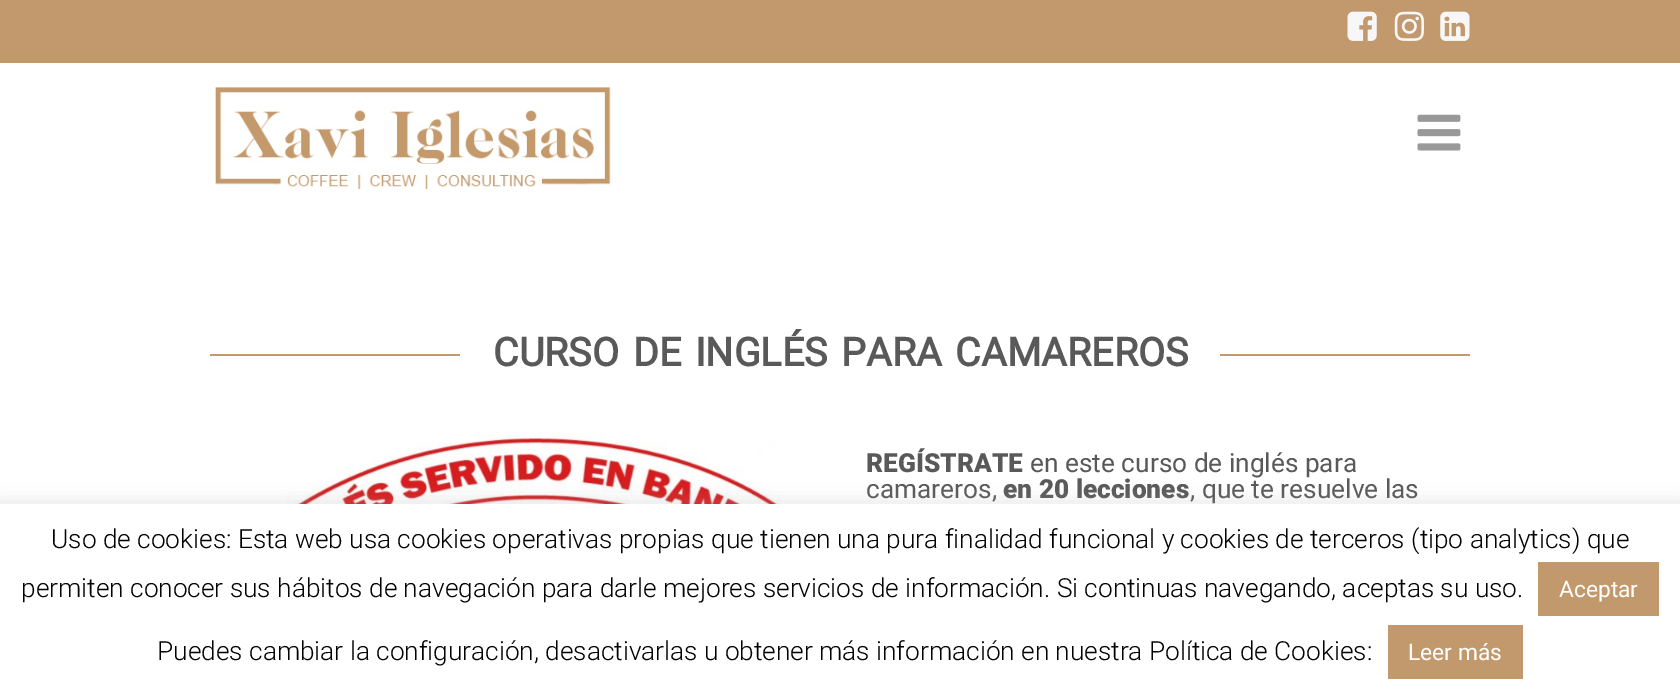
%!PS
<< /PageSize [1680 700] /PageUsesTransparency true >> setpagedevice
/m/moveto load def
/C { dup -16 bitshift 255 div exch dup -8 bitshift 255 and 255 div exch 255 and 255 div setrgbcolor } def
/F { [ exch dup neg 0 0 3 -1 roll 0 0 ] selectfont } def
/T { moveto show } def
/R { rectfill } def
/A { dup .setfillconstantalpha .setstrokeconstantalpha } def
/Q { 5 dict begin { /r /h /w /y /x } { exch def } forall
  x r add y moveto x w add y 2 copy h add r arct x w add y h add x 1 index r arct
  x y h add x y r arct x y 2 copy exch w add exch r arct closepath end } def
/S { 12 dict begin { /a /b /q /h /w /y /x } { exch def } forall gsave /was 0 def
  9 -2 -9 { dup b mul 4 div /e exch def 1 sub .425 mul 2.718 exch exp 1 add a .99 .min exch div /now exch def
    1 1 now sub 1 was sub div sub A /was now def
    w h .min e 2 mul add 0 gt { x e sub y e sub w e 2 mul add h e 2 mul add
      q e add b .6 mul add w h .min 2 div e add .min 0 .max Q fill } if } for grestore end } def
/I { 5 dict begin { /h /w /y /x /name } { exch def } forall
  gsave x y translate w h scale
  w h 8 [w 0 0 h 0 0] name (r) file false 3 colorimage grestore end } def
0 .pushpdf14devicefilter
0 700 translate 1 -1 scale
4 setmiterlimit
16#FFFFFF C
0 0 1680 700 R
16#C2996D C
0 0 1680 63 R
(1.rgb) 1347 11 30 30 I
(2.rgb) 1394 11 30 30 I
(3.rgb) 1440 11 30 30 I
(4.rgb) 215 87 396 102 I
(5.rgb) 1417 114 44 37 I
210 354 250 2 R
/Roboto-Bold 39.4 F
16#595959 C
493 366 m 4 0 32 (CURSO DE INGLÉS PARA CAMAREROS) widthshow
16#C2996D C
1220 354 250 2 R
(6.rgb) 249 431 571 73 I
/Roboto-Black 26.25 F
16#595959 C
(REGÍSTRATE) 866 472 T
/Roboto-Regular 26.25 F
(en este curso de inglés para) 1030 472 T
(camareros,) 866 498 T
/Roboto-Black 26.25 F
(en 20 lecciones) 1003 498 T
/Roboto-Regular 26.25 F
(, que te resuelve las) 1190 498 T
16#ACABAB C
0 502 1680 196 0 9 .3 S
16#FFFFFF C
0 504 1680 196 R
/Roboto-Light 26.25 F
16#000000 C
(Uso de cookies: Esta web usa cookies operativas propias que tienen una pura finalidad funcional y cookies de terceros \(tipo analytics\) que) 51 548 T
(permiten conocer sus hábitos de navegación para darle mejores servicios de información. Si continuas navegando, aceptas su uso.) 21 597 T
16#C2996D C
1538 562 121 54 R
/Roboto-Regular 22.75 F
16#FFFFFF C
(Aceptar) 1559 597 T
/Roboto-Light 26.25 F
16#000000 C
(Puedes cambiar la configuración, desactivarlas u obtener más información en nuestra Política de Cookies:) 157 660 T
16#C2996D C
1388 625 135 54 R
/Roboto-Regular 22.75 F
16#FFFFFF C
(Leer más) 1408 660 T
.poppdf14devicefilter showpage
